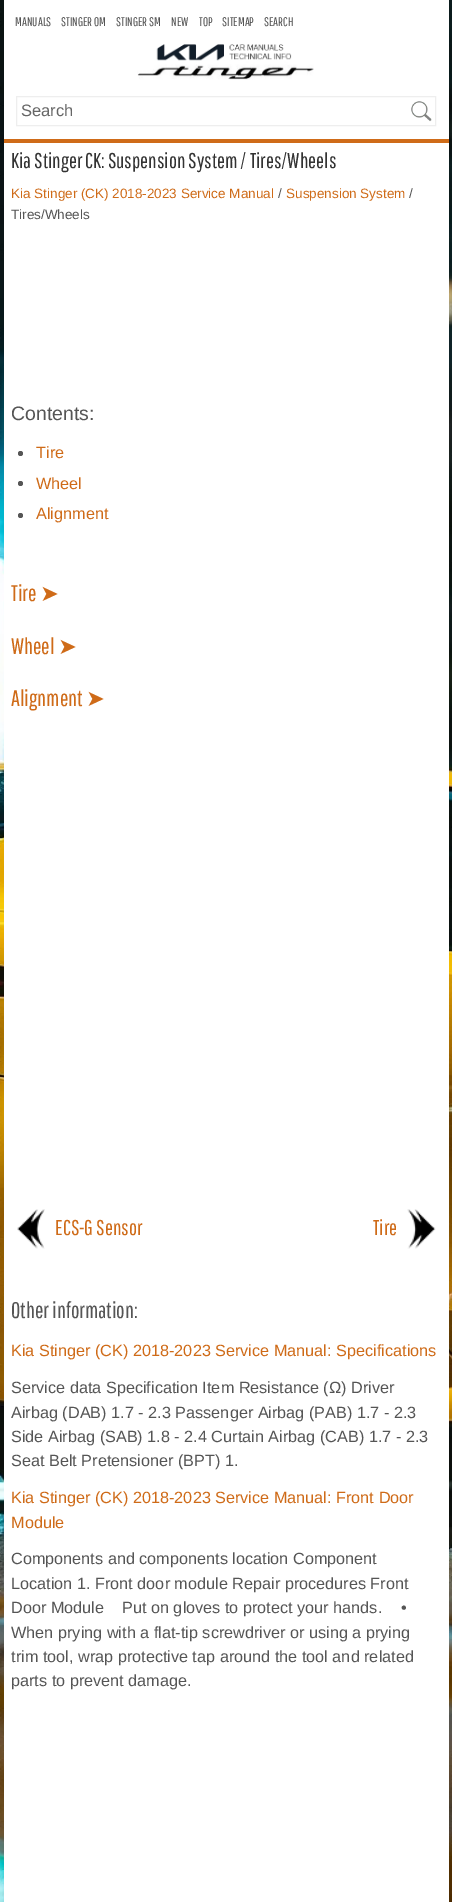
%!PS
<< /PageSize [452 1902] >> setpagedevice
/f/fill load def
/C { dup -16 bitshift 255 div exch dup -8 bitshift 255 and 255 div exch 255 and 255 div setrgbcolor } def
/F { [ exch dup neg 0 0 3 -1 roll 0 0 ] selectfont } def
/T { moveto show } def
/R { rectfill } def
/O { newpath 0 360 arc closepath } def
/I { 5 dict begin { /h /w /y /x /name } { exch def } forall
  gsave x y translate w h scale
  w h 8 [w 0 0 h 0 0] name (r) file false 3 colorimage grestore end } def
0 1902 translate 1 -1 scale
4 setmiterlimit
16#FFFFFF C
0 0 452 1902 R
(1.rgb) 0 0 452 1902 I
4 0 445 139 R
/PathwayGothicOne-Regular 12.5 F
16#555555 C
(MANUALS) 15 26 T
(STINGER OM) 61 26 T
(STINGER SM) 116 26 T
(NEW) 171 26 T
(TOP) 199 26 T
(SITEMAP) 222 26 T
(SEARCH) 264 26 T
(2.rgb) 137 44 177 36 I
16#EEEEEE C
16.5 96.5 419 29 rectstroke
/LiberationSans-Regular 16.5 F
16#666666 C
(Search) 21 116 T
(3.rgb) 411 101 21 21 I
16#FFFFFF C
4 143 445 1759 R
16#CF6B18 C
4 139 445 4 R
/PathwayGothicOne-Regular 21.25 F
16#333333 C
(Kia Stinger CK: Suspension System / Tires/Wheels) 11 168 T
/LiberationSans-Regular 13.5 F
16#CF6B18 C
(Kia Stinger \(CK\) 2018-2023 Service Manual) 11 198 T
16#555555 C
(/) 278 198 T
16#CF6B18 C
(Suspension System) 286 198 T
16#555555 C
(/) 409 198 T
(Tires/Wheels) 11 219 T
/LiberationSans-Regular 19.5 F
(Contents:) 11 420 T
20.5 453.5 2.5 O f
/LiberationSans-Regular 16.25 F
16#CF6B18 C
(Tire) 36 458 T
16#555555 C
20.5 483.5 2.5 O f
16#CF6B18 C
(Wheel) 36 489 T
16#555555 C
20.5 515.5 2.5 O f
16#CF6B18 C
(Alignment) 36 519 T
/PathwayGothicOne-Regular 22.5 F
(Tire) 11 601 T
/DejaVuSans-Regular 22.5 F
(➤) 40 601 T
/PathwayGothicOne-Regular 22.5 F
(Wheel) 11 654 T
/DejaVuSans-Regular 22.5 F
(➤) 58 654 T
/PathwayGothicOne-Regular 22.5 F
(Alignment) 11 706 T
/DejaVuSans-Regular 22.5 F
(➤) 86 706 T
(4.rgb) 17 1209 28 40 I
/PathwayGothicOne-Regular 21.25 F
(ECS-G Sensor) 55 1235 T
(Tire) 373 1235 T
(5.rgb) 407 1209 29 40 I
/PathwayGothicOne-Regular 22.5 F
16#555555 C
(Other information:) 11 1318 T
/LiberationSans-Regular 16.25 F
16#CF6B18 C
(Kia Stinger \(CK\) 2018-2023 Service Manual: Specifications) 11 1356 T
16#555555 C
(Service data Specification Item Resistance \(Ω\) Driver) 11 1393 T
(Airbag \(DAB\) 1.7 - 2.3 Passenger Airbag \(PAB\) 1.7 - 2.3) 11 1418 T
(Side Airbag \(SAB\) 1.8 - 2.4 Curtain Airbag \(CAB\) 1.7 - 2.3) 11 1442 T
(Seat Belt Pretensioner \(BPT\) 1.) 11 1466 T
16#CF6B18 C
(Kia Stinger \(CK\) 2018-2023 Service Manual: Front Door) 11 1503 T
(Module) 11 1528 T
16#555555 C
(Components and components location Component) 11 1564 T
(Location 1. Front door module Repair procedures Front) 11 1589 T
(Door Module) 11 1613 T
(Put on gloves to protect your hands.) 122 1613 T
(•) 401 1613 T
(When prying with a flat-tip screwdriver or using a prying) 11 1638 T
(trim tool, wrap protective tap around the tool and related) 11 1662 T
(parts to prevent damage.) 11 1686 T
showpage
